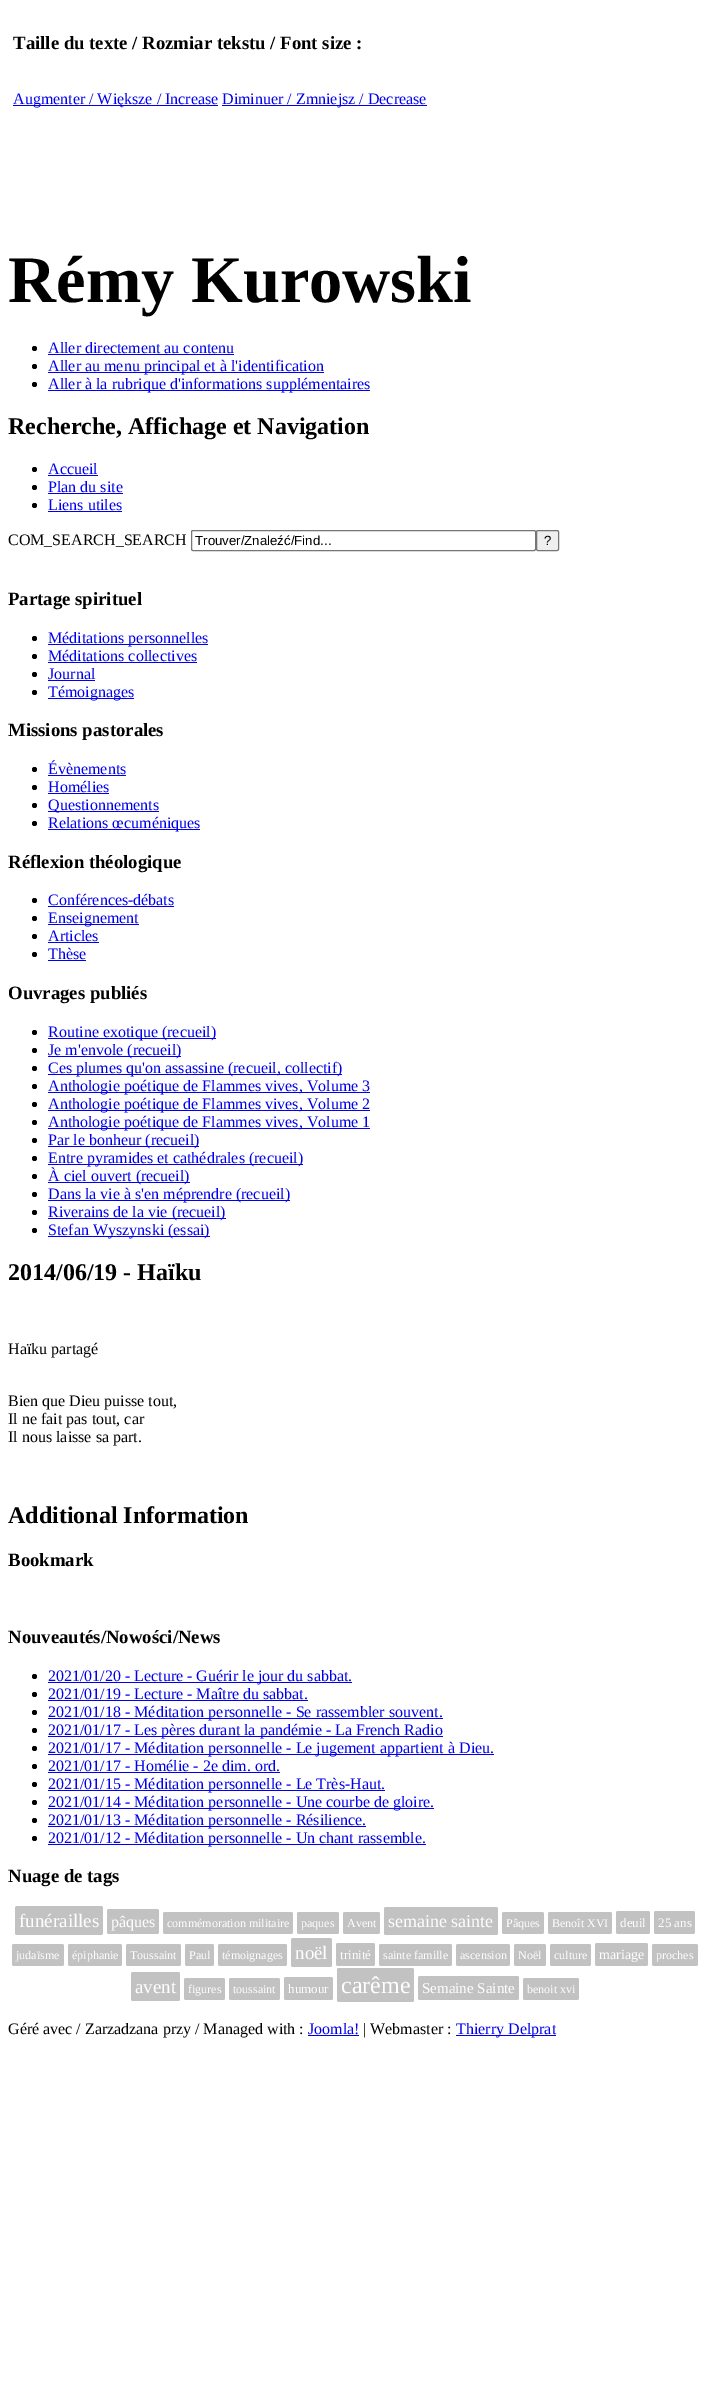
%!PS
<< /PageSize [710 2399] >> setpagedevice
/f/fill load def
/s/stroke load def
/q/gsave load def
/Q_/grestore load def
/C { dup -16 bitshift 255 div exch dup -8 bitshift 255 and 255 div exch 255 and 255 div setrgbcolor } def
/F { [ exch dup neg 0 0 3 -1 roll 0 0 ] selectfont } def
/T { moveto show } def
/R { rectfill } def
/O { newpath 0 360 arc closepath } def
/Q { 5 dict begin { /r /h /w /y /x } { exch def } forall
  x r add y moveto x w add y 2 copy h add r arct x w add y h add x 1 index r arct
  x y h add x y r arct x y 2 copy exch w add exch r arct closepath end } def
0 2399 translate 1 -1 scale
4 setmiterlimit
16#FFFFFF C
0 0 710 2399 R
/LiberationSerif-Bold 18.75 F
16#000000 C
(Taille du texte / Rozmiar tekstu / Font size :) 13 49 T
16#0000EE C
13 105 205 1 R
/LiberationSerif-Regular 16 F
(Augmenter / Większe / Increase) 13 104 T
222 105 205 1 R
(Diminuer / Zmniejsz / Decrease) 222 104 T
/LiberationSerif-Bold 66.5 F
16#000000 C
(Rémy Kurowski) 8 302 T
34.5 348.5 2.5 O f
/LiberationSerif-Regular 16 F
16#0000EE C
(Aller directement au contenu) 48 353 T
48 354 186 1 R
16#000000 C
34.5 366.5 2.5 O f
16#0000EE C
48 372 276 1 R
(Aller au menu principal et à l'identification) 48 371 T
16#000000 C
34.5 384.5 2.5 O f
16#0000EE C
48 390 322 1 R
(Aller à la rubrique d'informations supplémentaires) 48 389 T
/LiberationSerif-Bold 24 F
16#000000 C
(Recherche, Affichage et Navigation) 8 434 T
34.5 469.5 2.5 O f
/LiberationSerif-Regular 16 F
16#0000EE C
(Accueil) 48 474 T
48 475 50 1 R
16#000000 C
34.5 487.5 2.5 O f
16#0000EE C
(Plan du site) 48 492 T
48 493 75 1 R
16#000000 C
34.5 505.5 2.5 O f
16#0000EE C
(Liens utiles) 48 510 T
48 511 74 1 R
16#000000 C
(COM_SEARCH_SEARCH) 8 545 T
16#767676 C
191.5 530.5 344 20 1.5 Q s
/LiberationSans-Regular 13.25 F
16#000000 C
(Trouver/Znaleźć/Find...) 195 545 T
16#EFEFEF C
536.5 530.5 22 20 1.5 Q q f Q_
16#767676 C
s
16#000000 C
(?) 544 545 T
/LiberationSerif-Bold 18.75 F
(Partage spirituel) 8 605 T
34.5 638.5 2.5 O f
16#0000EE C
48 644 160 1 R
/LiberationSerif-Regular 16 F
(Méditations personnelles) 48 643 T
16#000000 C
34.5 656.5 2.5 O f
16#0000EE C
(Méditations collectives) 48 661 T
48 662 149 1 R
16#000000 C
34.5 674.5 2.5 O f
16#0000EE C
(Journal) 48 679 T
48 680 47 1 R
16#000000 C
34.5 692.5 2.5 O f
16#0000EE C
48 698 86 1 R
(Témoignages) 48 697 T
/LiberationSerif-Bold 18.75 F
16#000000 C
(Missions pastorales) 8 736 T
34.5 769.5 2.5 O f
/LiberationSerif-Regular 16 F
16#0000EE C
(Évènements) 48 774 T
48 775 78 1 R
16#000000 C
34.5 787.5 2.5 O f
16#0000EE C
(Homélies) 48 792 T
48 793 61 1 R
16#000000 C
34.5 805.5 2.5 O f
16#0000EE C
48 811 111 1 R
(Questionnements) 48 810 T
16#000000 C
34.5 823.5 2.5 O f
16#0000EE C
48 829 152 1 R
(Relations œcuméniques) 48 828 T
/LiberationSerif-Bold 18.75 F
16#000000 C
(Réflexion théologique) 8 868 T
34.5 900.5 2.5 O f
/LiberationSerif-Regular 16 F
16#0000EE C
(Conférences-débats) 48 905 T
48 906 126 1 R
16#000000 C
34.5 918.5 2.5 O f
16#0000EE C
48 924 91 1 R
(Enseignement) 48 923 T
16#000000 C
34.5 936.5 2.5 O f
16#0000EE C
(Articles) 48 941 T
48 942 51 1 R
16#000000 C
34.5 954.5 2.5 O f
16#0000EE C
(Thèse) 48 959 T
48 960 38 1 R
/LiberationSerif-Bold 18.75 F
16#000000 C
(Ouvrages publiés) 8 999 T
34.5 1032.5 2.5 O f
16#0000EE C
48 1038 168 1 R
/LiberationSerif-Regular 16 F
(Routine exotique \(recueil\)) 48 1037 T
16#000000 C
34.5 1050.5 2.5 O f
16#0000EE C
48 1056 133 1 R
(Je m'envole \(recueil\)) 48 1055 T
16#000000 C
34.5 1068.5 2.5 O f
16#0000EE C
48 1074 294 1 R
(Ces plumes qu'on assassine \(recueil, collectif\)) 48 1073 T
16#000000 C
34.5 1086.5 2.5 O f
16#0000EE C
48 1092 322 1 R
(Anthologie poétique de Flammes vives, Volume 3) 48 1091 T
16#000000 C
34.5 1104.5 2.5 O f
16#0000EE C
48 1110 322 1 R
(Anthologie poétique de Flammes vives, Volume 2) 48 1109 T
16#000000 C
34.5 1122.5 2.5 O f
16#0000EE C
48 1128 322 1 R
(Anthologie poétique de Flammes vives, Volume 1) 48 1127 T
16#000000 C
34.5 1140.5 2.5 O f
16#0000EE C
48 1146 151 1 R
(Par le bonheur \(recueil\)) 48 1145 T
16#000000 C
34.5 1158.5 2.5 O f
16#0000EE C
48 1164 255 1 R
(Entre pyramides et cathédrales \(recueil\)) 48 1163 T
16#000000 C
34.5 1176.5 2.5 O f
16#0000EE C
48 1182 142 1 R
(À ciel ouvert \(recueil\)) 48 1181 T
16#000000 C
34.5 1194.5 2.5 O f
16#0000EE C
48 1200 242 1 R
(Dans la vie à s'en méprendre \(recueil\)) 48 1199 T
16#000000 C
34.5 1212.5 2.5 O f
16#0000EE C
48 1218 178 1 R
(Riverains de la vie \(recueil\)) 48 1217 T
16#000000 C
34.5 1230.5 2.5 O f
16#0000EE C
48 1236 162 1 R
(Stefan Wyszynski \(essai\)) 48 1235 T
/LiberationSerif-Bold 24 F
16#000000 C
(2014/06/19 - Haïku) 8 1280 T
/LiberationSerif-Regular 16 F
(Haïku partagé) 8 1354 T
(Bien que Dieu puisse tout,) 8 1406 T
(Il ne fait pas tout, car) 8 1424 T
(Il nous laisse sa part.) 8 1442 T
/LiberationSerif-Bold 24 F
(Additional Information) 8 1523 T
/LiberationSerif-Bold 18.75 F
(Bookmark) 8 1566 T
(Nouveautés/Nowości/News) 8 1643 T
34.5 1676.5 2.5 O f
16#0000EE C
48 1682 304 1 R
/LiberationSerif-Regular 16 F
(2021/01/20 - Lecture - Guérir le jour du sabbat.) 48 1681 T
16#000000 C
34.5 1694.5 2.5 O f
16#0000EE C
(2021/01/19 - Lecture - Maître du sabbat.) 48 1699 T
48 1700 260 1 R
16#000000 C
34.5 1712.5 2.5 O f
16#0000EE C
48 1718 395 1 R
(2021/01/18 - Méditation personnelle - Se rassembler souvent.) 48 1717 T
16#000000 C
34.5 1730.5 2.5 O f
16#0000EE C
48 1736 395 1 R
(2021/01/17 - Les pères durant la pandémie - La French Radio) 48 1735 T
16#000000 C
34.5 1748.5 2.5 O f
16#0000EE C
48 1754 446 1 R
(2021/01/17 - Méditation personnelle - Le jugement appartient à Dieu.) 48 1753 T
16#000000 C
34.5 1766.5 2.5 O f
16#0000EE C
(2021/01/17 - Homélie - 2e dim. ord.) 48 1771 T
48 1772 232 1 R
16#000000 C
34.5 1784.5 2.5 O f
16#0000EE C
48 1790 337 1 R
(2021/01/15 - Méditation personnelle - Le Très-Haut.) 48 1789 T
16#000000 C
34.5 1802.5 2.5 O f
16#0000EE C
48 1808 386 1 R
(2021/01/14 - Méditation personnelle - Une courbe de gloire.) 48 1807 T
16#000000 C
34.5 1820.5 2.5 O f
16#0000EE C
48 1826 318 1 R
(2021/01/13 - Méditation personnelle - Résilience.) 48 1825 T
16#000000 C
34.5 1838.5 2.5 O f
16#0000EE C
48 1844 378 1 R
(2021/01/12 - Méditation personnelle - Un chant rassemble.) 48 1843 T
/LiberationSerif-Bold 18.75 F
16#000000 C
(Nuage de tags) 8 1882 T
16#C2C2C2 C
15 1906 88 29 2 Q f
/LiberationSerif-Regular 19 F
16#FFFFFF C
(funérailles) 19 1927 T
16#C2C2C2 C
107 1909 52 25 2 Q f
/LiberationSerif-Regular 16 F
16#FFFFFF C
(pâques) 111 1927 T
16#C2C2C2 C
163 1912 130 22 2 Q f
/LiberationSerif-Regular 12 F
16#FFFFFF C
(commémoration militaire) 167 1927 T
16#C2C2C2 C
297 1912 42 22 2 Q f
16#FFFFFF C
(paques) 301 1927 T
16#C2C2C2 C
343 1912 37 22 2 Q f
16#FFFFFF C
(Avent) 347 1927 T
16#C2C2C2 C
384 1907 114 28 2 Q f
/LiberationSerif-Regular 18 F
16#FFFFFF C
(semaine sainte) 388 1927 T
16#C2C2C2 C
502 1912 42 22 2 Q f
/LiberationSerif-Regular 12 F
16#FFFFFF C
(Pâques) 506 1927 T
16#C2C2C2 C
548 1912 64 22 2 Q f
16#FFFFFF C
(Benoît XVI) 552 1927 T
16#C2C2C2 C
616 1911 34 23 2 Q f
/LiberationSerif-Regular 13 F
16#FFFFFF C
(deuil) 620 1927 T
16#C2C2C2 C
654 1911 41 23 2 Q f
16#FFFFFF C
(25 ans) 658 1927 T
16#C2C2C2 C
12 1944 52 22 2 Q f
/LiberationSerif-Regular 12 F
16#FFFFFF C
(judaïsme) 16 1959 T
16#C2C2C2 C
68 1944 54 22 2 Q f
16#FFFFFF C
(épiphanie) 72 1959 T
16#C2C2C2 C
126 1944 55 22 2 Q f
16#FFFFFF C
(Toussaint) 130 1959 T
16#C2C2C2 C
185 1944 29 22 2 Q f
16#FFFFFF C
(Paul) 189 1959 T
16#C2C2C2 C
218 1944 69 22 2 Q f
16#FFFFFF C
(témoignages) 222 1959 T
16#C2C2C2 C
291 1938 41 29 2 Q f
/LiberationSerif-Regular 19 F
16#FFFFFF C
(noël) 295 1959 T
16#C2C2C2 C
336 1943 39 23 2 Q f
/LiberationSerif-Regular 13 F
16#FFFFFF C
(trinité) 340 1959 T
16#C2C2C2 C
379 1944 73 22 2 Q f
/LiberationSerif-Regular 12 F
16#FFFFFF C
(sainte famille) 383 1959 T
16#C2C2C2 C
456 1944 54 22 2 Q f
16#FFFFFF C
(ascension) 460 1959 T
16#C2C2C2 C
514 1944 32 22 2 Q f
16#FFFFFF C
(Noël) 518 1959 T
16#C2C2C2 C
550 1944 41 22 2 Q f
16#FFFFFF C
(culture) 554 1959 T
16#C2C2C2 C
595 1943 53 23 2 Q f
/LiberationSerif-Regular 14 F
16#FFFFFF C
(mariage) 599 1959 T
16#C2C2C2 C
652 1944 46 22 2 Q f
/LiberationSerif-Regular 12 F
16#FFFFFF C
(proches) 656 1959 T
16#C2C2C2 C
131 1972 49 29 2 Q f
/LiberationSerif-Regular 19 F
16#FFFFFF C
(avent) 135 1993 T
16#C2C2C2 C
184 1978 41 22 2 Q f
/LiberationSerif-Regular 12 F
16#FFFFFF C
(figures) 188 1993 T
16#C2C2C2 C
229 1978 51 22 2 Q f
16#FFFFFF C
(toussaint) 233 1993 T
16#C2C2C2 C
284 1977 49 23 2 Q f
/LiberationSerif-Regular 13 F
16#FFFFFF C
(humour) 288 1993 T
16#C2C2C2 C
337 1968 77 34 2 Q f
/LiberationSerif-Regular 24 F
16#FFFFFF C
(carême) 341 1993 T
16#C2C2C2 C
418 1976 101 24 2 Q f
/LiberationSerif-Regular 15 F
16#FFFFFF C
(Semaine Sainte) 422 1993 T
16#C2C2C2 C
523 1978 56 22 2 Q f
/LiberationSerif-Regular 12 F
16#FFFFFF C
(benoit xvi) 527 1993 T
/LiberationSerif-Regular 16 F
16#000000 C
(Géré avec / Zarzadzana przy / Managed with :) 8 2034 T
16#0000EE C
(Joomla!) 308 2034 T
308 2035 51 1 R
16#000000 C
(| Webmaster :) 363 2034 T
16#0000EE C
456 2035 100 1 R
(Thierry Delprat) 456 2034 T
showpage
